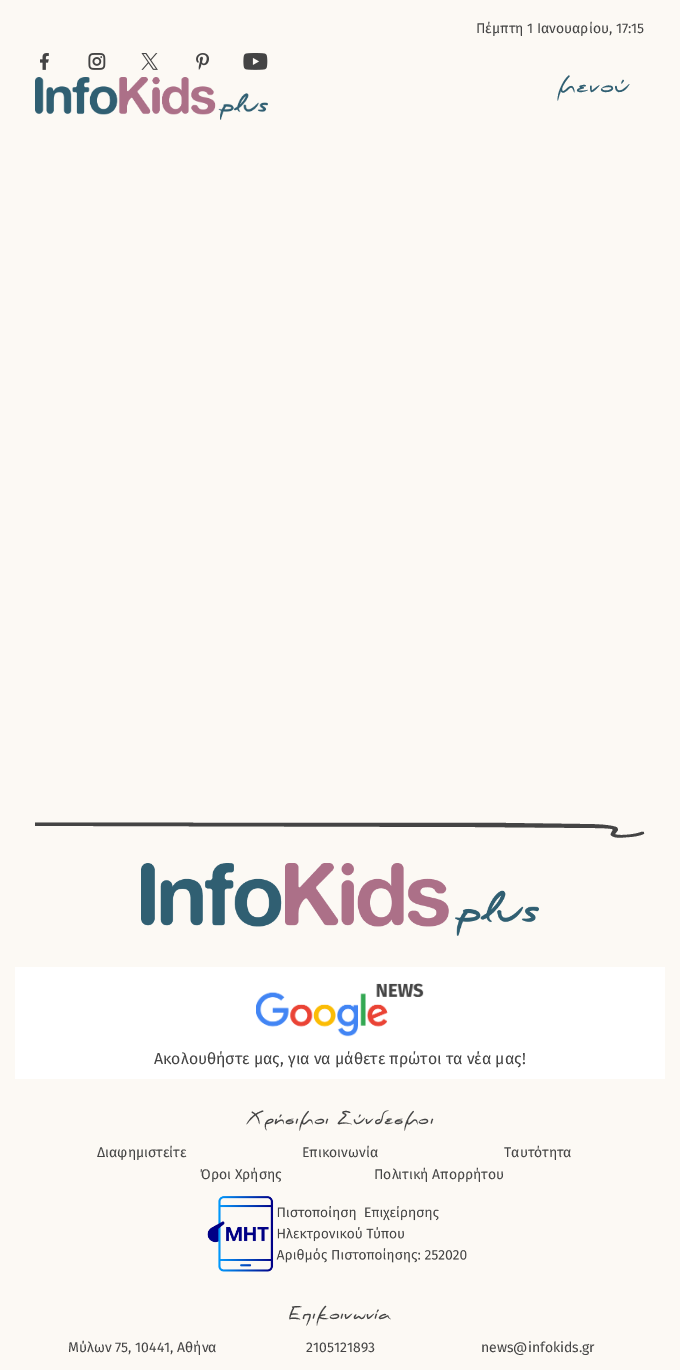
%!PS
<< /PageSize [680 1370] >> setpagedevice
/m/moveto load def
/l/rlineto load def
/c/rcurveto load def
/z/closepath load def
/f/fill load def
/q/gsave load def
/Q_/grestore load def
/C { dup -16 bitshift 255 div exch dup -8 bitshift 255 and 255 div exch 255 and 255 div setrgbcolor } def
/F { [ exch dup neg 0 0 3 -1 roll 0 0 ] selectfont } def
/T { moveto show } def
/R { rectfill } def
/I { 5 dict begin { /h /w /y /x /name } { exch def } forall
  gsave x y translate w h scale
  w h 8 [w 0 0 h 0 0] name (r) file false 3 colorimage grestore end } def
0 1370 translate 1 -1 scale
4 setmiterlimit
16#FCF9F4 C
0 0 680 1370 R
/FiraSans-Regular 14 F
16#444444 C
(Πέμπτη 1 Ιανουαρίου, 17:15) 476 33 T
(1.rgb) 35 77 233 43 I
(2.rgb) 40 53 9 17 I
(3.rgb) 88 53 18 17 I
(4.rgb) 141 53 17 17 I
(5.rgb) 196 53 13 17 I
(6.rgb) 243 53 25 17 I
/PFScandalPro-Bold 23 F
16#305F72 C
(μενού) 557 92 T
q
35 821 610 17 rectclip
16#444444 C
618 830 m -3 4 l 1 2 19 1 26 -2 c 1 0 3 -1 3 1 c 1 2 -12 4 -14 4 c -5 0 -13 2 -18 -1 c -4 -2 3 -6 0 -7 c -6 -1 -13 -1 -18 -1 c -119 -1 l -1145 -3 l -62 -1 l -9 -1 l 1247 1 l 74 1 l 7 0 28 0 36 3 c 1 0 2 2 2 3 c z f
Q_
(7.rgb) 141 863 398 73 I
16#FFFFFF C
15 967 650 112 R
(8.rgb) 256 983 168 54 I
/FiraSans-Regular 15.9 F
16#444444 C
(Ακολουθήστε μας, για να μάθετε πρώτοι τα νέα μας!) 154 1064 T
/PFScandalPro-Bold 18 F
(Χρήσιμοι Σύνδεσμοι) 246 1124 T
/FiraSans-Regular 14 F
(Διαφημιστείτε) 97 1157 T
(Επικοινωνία) 302 1157 T
(Ταυτότητα) 504 1157 T
(Όροι Χρήσης) 200 1179 T
(Πολιτική Απορρήτου) 374 1179 T
(9.rgb) 207 1196 260 76 I
/PFScandalPro-Bold 18 F
(Επικοινωνία) 288 1319 T
/FiraSans-Regular 14 F
(Μύλων 75, 10441, Αθήνα) 68 1352 T
(2105121893) 306 1352 T
(news@infokids.gr) 481 1352 T
showpage
